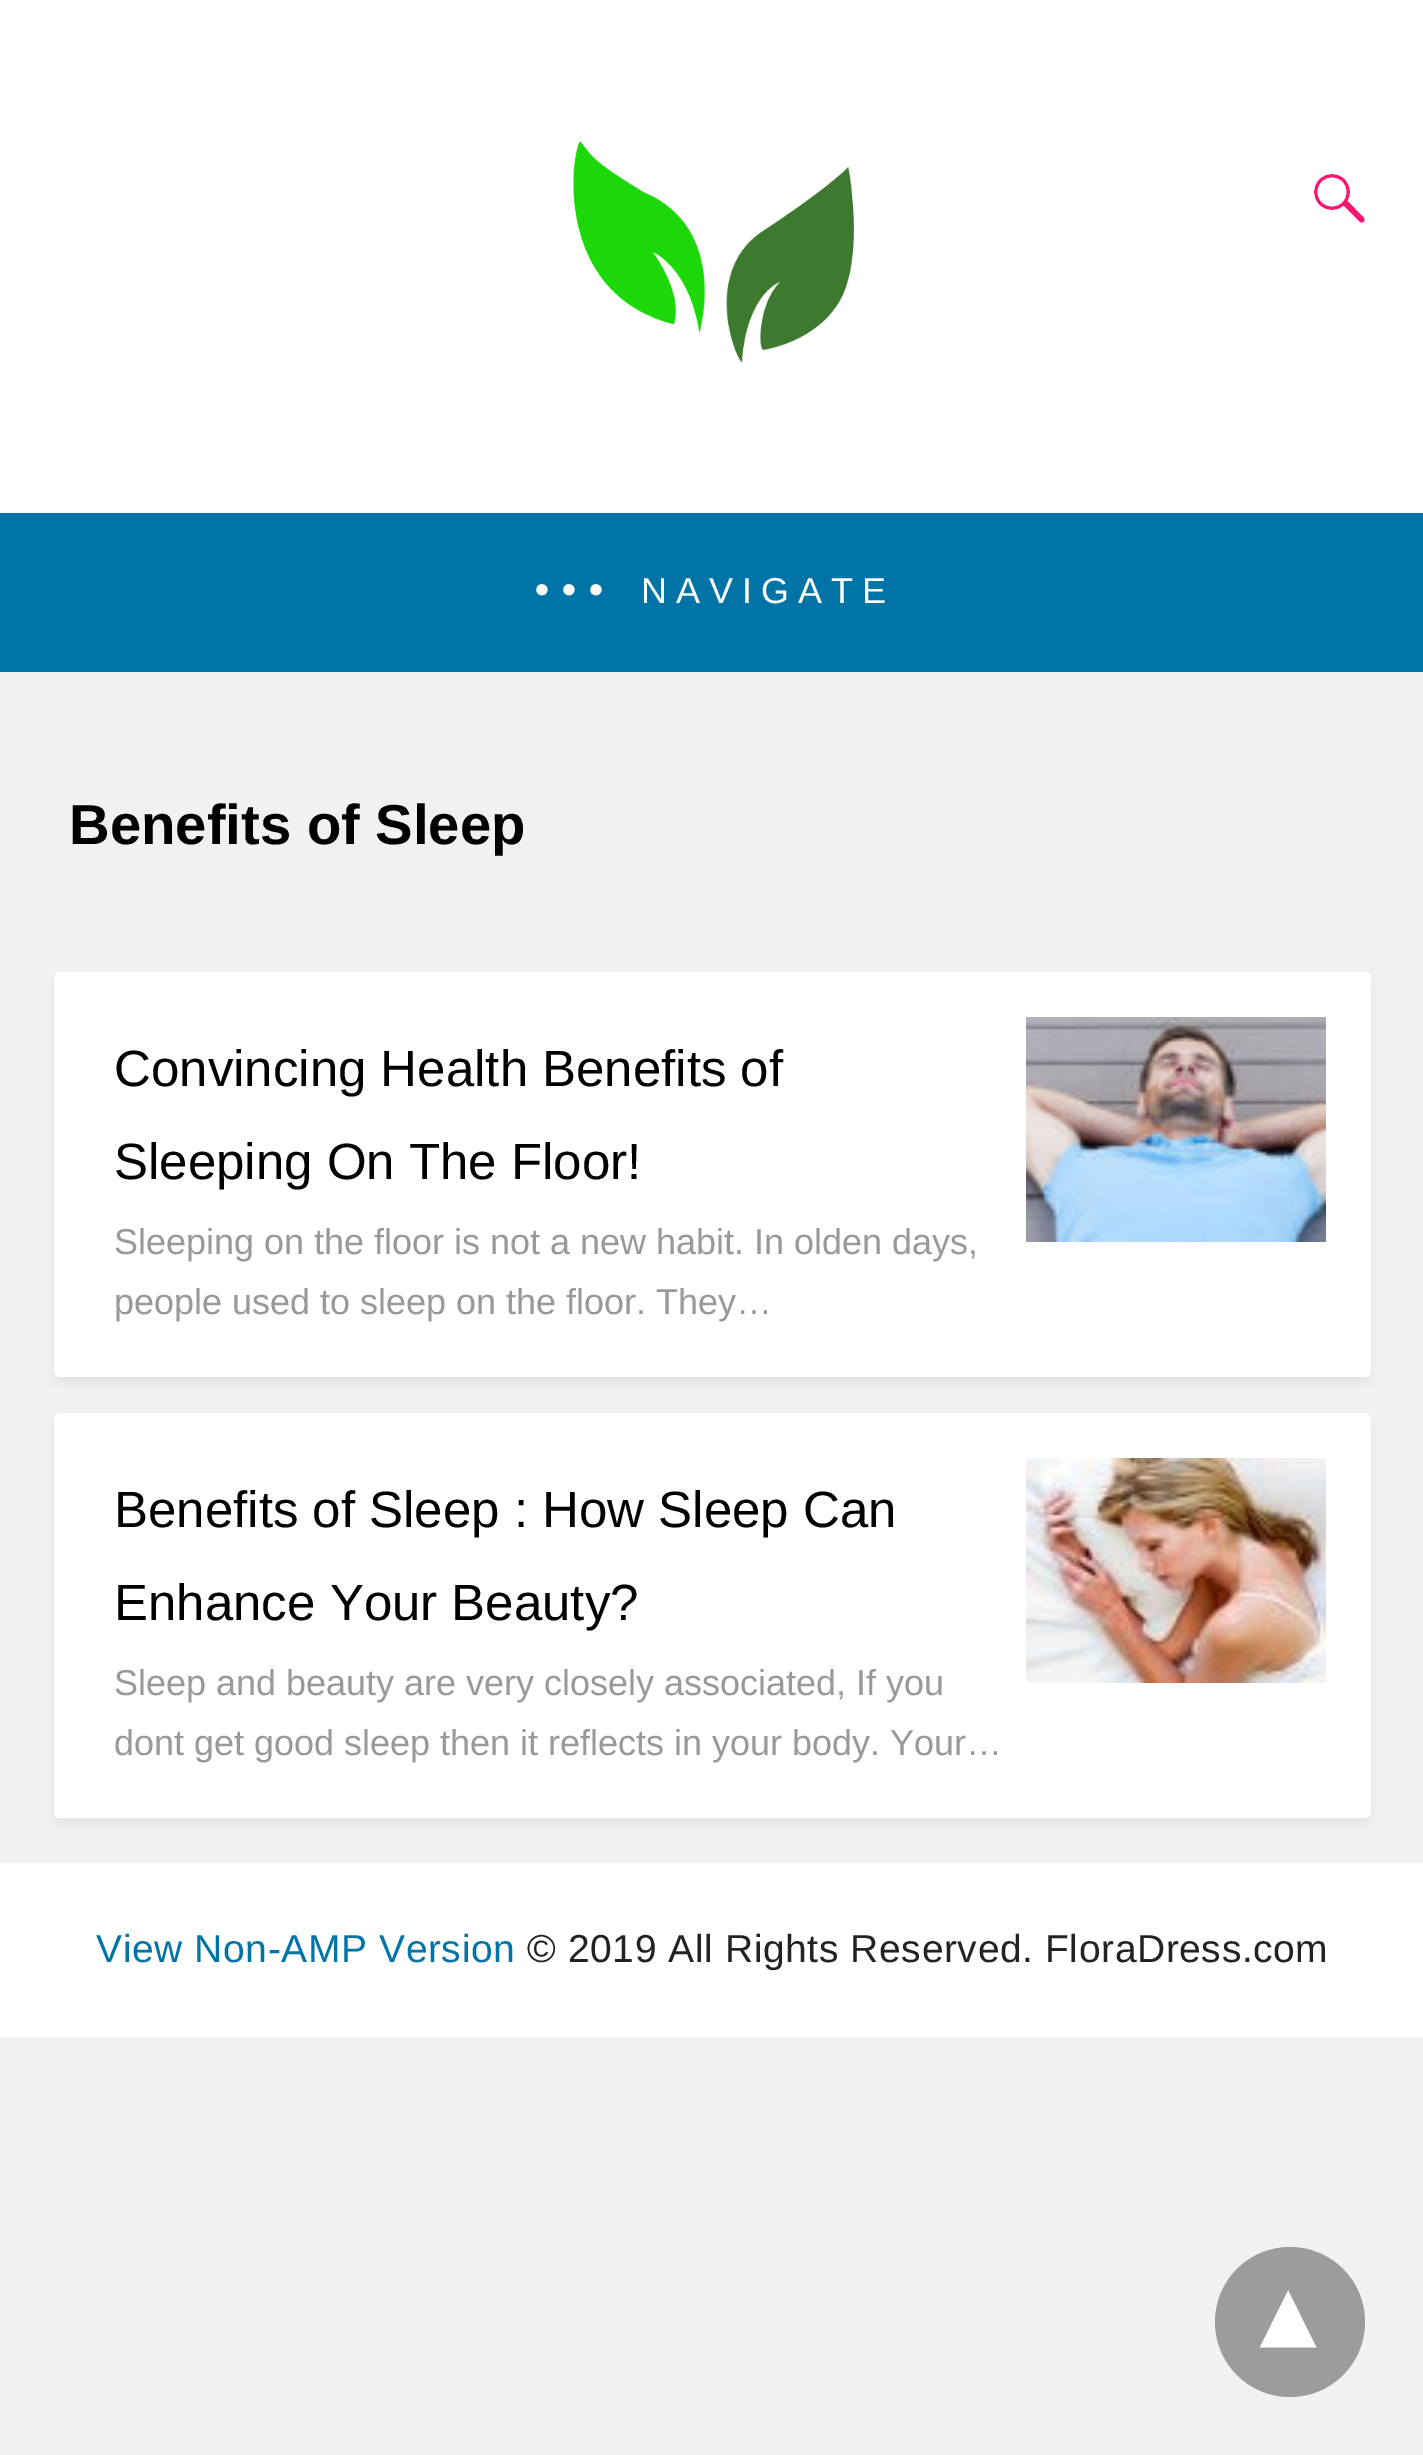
%!PS
<< /PageSize [1423 2455] /PageUsesTransparency true >> setpagedevice
/m/moveto load def
/l/rlineto load def
/c/rcurveto load def
/z/closepath load def
/f/fill load def
/s/stroke load def
/q/gsave load def
/Q_/grestore load def
/w/setlinewidth load def
/C { dup -16 bitshift 255 div exch dup -8 bitshift 255 and 255 div exch 255 and 255 div setrgbcolor } def
/F { [ exch dup neg 0 0 3 -1 roll 0 0 ] selectfont } def
/T { moveto show } def
/R { rectfill } def
/A { dup .setfillconstantalpha .setstrokeconstantalpha } def
/O { newpath 0 360 arc closepath } def
/Q { 5 dict begin { /r /h /w /y /x } { exch def } forall
  x r add y moveto x w add y 2 copy h add r arct x w add y h add x 1 index r arct
  x y h add x y r arct x y 2 copy exch w add exch r arct closepath end } def
/S { 12 dict begin { /a /b /q /h /w /y /x } { exch def } forall gsave /was 0 def
  9 -2 -9 { dup b mul 4 div /e exch def 1 sub .425 mul 2.718 exch exp 1 add a .99 .min exch div /now exch def
    1 1 now sub 1 was sub div sub A /was now def
    w h .min e 2 mul add 0 gt { x e sub y e sub w e 2 mul add h e 2 mul add
      q e add b .6 mul add w h .min 2 div e add .min 0 .max Q fill } if } for grestore end } def
/I { 5 dict begin { /h /w /y /x /name } { exch def } forall
  gsave x y translate w h scale
  w h 8 [w 0 0 h 0 0] name (r) file false 3 colorimage grestore end } def
0 .pushpdf14devicefilter
0 2455 translate 1 -1 scale
4 setmiterlimit
16#F1F1F1 C
0 0 1423 2455 R
16#FFFFFF C
0 0 1423 513 R
(1.rgb) 573 141 282 222 I
16#F71670 C
3 w
1343.5 180.5 m 6.5 6.5 6.5 16.5 0 23 c -6.5 6.5 -16.5 6.5 -23 0 c -6.5 -6.5 -6.5 -16.5 0 -23 c 6.5 -6.5 16.5 -6.5 23 0 c z s
1342.5 204.5 m 4.5 -4 l 17 17.5 l 2 3 -2 6 -4.5 3.5 c z f
16#0074A7 C
0 513 1423 159 R
/LiberationSerif-Regular 96 F
16#FFFFFF C
530 594 m 3 0 (...) ashow
/LiberationSans-Regular 36 F
641 603 m 9 0 (NAVIGATE) ashow
/LiberationSans-Bold 56.25 F
16#000000 C
(Benefits of Sleep) 69 844 T
54 978 1317 405 6 4.5 .05 S
16#FFFFFF C
54 972 1317 405 6 Q f
/LiberationSans-Regular 51 F
16#000000 C
(Convincing Health Benefits of) 114 1086 T
(Sleeping On The Floor!) 114 1179 T
/LiberationSans-Regular 36 F
16#999999 C
(Sleeping on the floor is not a new habit. In olden days,) 114 1254 T
(people used to sleep on the floor. They…) 114 1314 T
(2.rgb) 1026 1017 300 225 I
16#000000 C
54 1419 1317 405 6 4.5 .05 S
16#FFFFFF C
54 1413 1317 405 6 Q f
/LiberationSans-Regular 51 F
16#000000 C
(Benefits of Sleep : How Sleep Can) 114 1527 T
(Enhance Your Beauty?) 114 1620 T
/LiberationSans-Regular 36 F
16#999999 C
(Sleep and beauty are very closely associated, If you) 114 1695 T
(dont get good sleep then it reflects in your body. Your…) 114 1755 T
(3.rgb) 1026 1458 300 225 I
16#FFFFFF C
0 1863 1423 174 R
/LiberationSans-Regular 39 F
16#0074A7 C
96 1962 m .6 0 (View Non-AMP Version) ashow
16#222222 C
527 1962 m .6 0 (© 2019 All Rights Reserved. FloraDress.com) ashow
16#9C9C9C C
1290 2322 75 O f
/DejaVuSans-Bold 105 F
16#FFFFFF C
q 1316 2291 translate 180 rotate 0 0 m (▾) show Q_
.poppdf14devicefilter showpage
